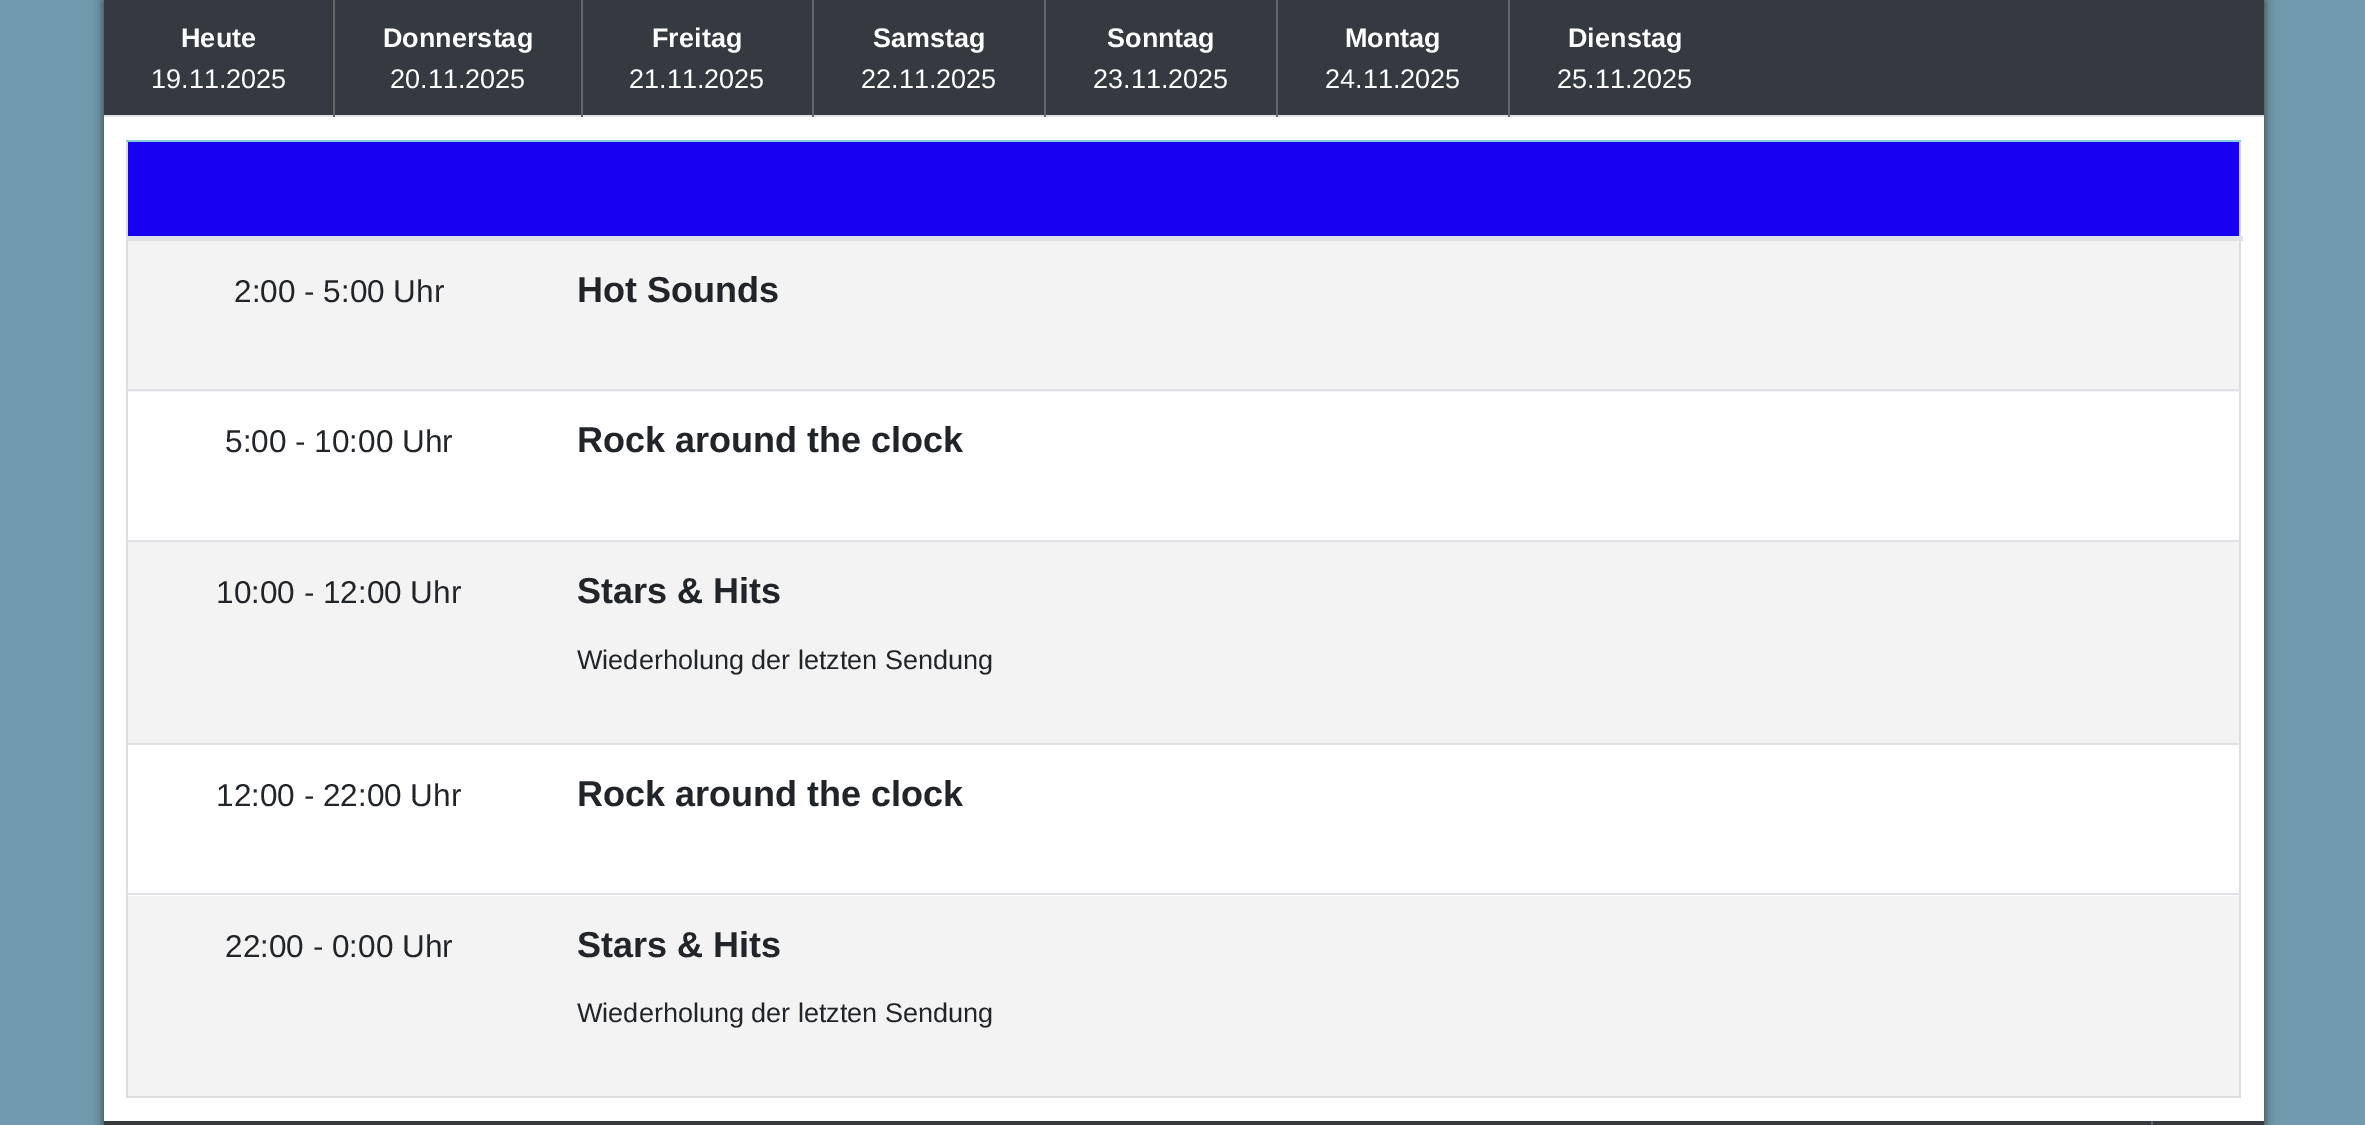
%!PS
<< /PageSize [2365 1125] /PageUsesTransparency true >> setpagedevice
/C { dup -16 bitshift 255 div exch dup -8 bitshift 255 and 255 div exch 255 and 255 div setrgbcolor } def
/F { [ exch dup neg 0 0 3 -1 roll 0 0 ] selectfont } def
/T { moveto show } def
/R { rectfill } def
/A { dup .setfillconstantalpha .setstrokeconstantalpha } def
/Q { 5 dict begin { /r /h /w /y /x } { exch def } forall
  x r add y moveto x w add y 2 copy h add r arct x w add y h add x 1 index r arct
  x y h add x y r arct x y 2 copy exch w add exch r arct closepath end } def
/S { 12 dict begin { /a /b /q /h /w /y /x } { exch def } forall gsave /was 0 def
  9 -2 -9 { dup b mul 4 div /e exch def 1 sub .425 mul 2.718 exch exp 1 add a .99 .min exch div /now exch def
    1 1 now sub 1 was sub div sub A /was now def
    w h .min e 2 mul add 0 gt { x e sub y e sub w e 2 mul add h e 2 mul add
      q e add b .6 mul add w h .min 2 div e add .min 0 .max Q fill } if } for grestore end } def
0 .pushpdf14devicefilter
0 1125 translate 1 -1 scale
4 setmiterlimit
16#709BAE C
0 0 2365 1125 R
16#333333 C
104 0 2160 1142 0 5.5 1 S
16#343A40 C
104 0 2160 115 R
16#DEE2E6 C
104 115 2160 2 R
16#666666 C
333 0 2 117 R
/LiberationSans-Bold 27 F
16#FFFFFF C
(Heute) 181 47 T
/LiberationSans-Regular 27 F
(19.11.2025) 151 88 T
16#666666 C
581 0 2 117 R
/LiberationSans-Bold 27 F
16#FFFFFF C
(Donnerstag) 383 47 T
/LiberationSans-Regular 27 F
(20.11.2025) 390 88 T
16#666666 C
812 0 2 117 R
/LiberationSans-Bold 27 F
16#FFFFFF C
(Freitag) 652 47 T
/LiberationSans-Regular 27 F
(21.11.2025) 629 88 T
16#666666 C
1044 0 2 117 R
/LiberationSans-Bold 27 F
16#FFFFFF C
(Samstag) 873 47 T
/LiberationSans-Regular 27 F
(22.11.2025) 861 88 T
16#666666 C
1276 0 2 117 R
/LiberationSans-Bold 27 F
16#FFFFFF C
(Sonntag) 1107 47 T
/LiberationSans-Regular 27 F
(23.11.2025) 1093 88 T
16#666666 C
1508 0 2 117 R
/LiberationSans-Bold 27 F
16#FFFFFF C
(Montag) 1345 47 T
/LiberationSans-Regular 27 F
(24.11.2025) 1325 88 T
/LiberationSans-Bold 27 F
(Dienstag) 1568 47 T
/LiberationSans-Regular 27 F
(25.11.2025) 1557 88 T
104 117 2160 1004 R
16#DDDDDD C
2239 140 2 958 R
126 1096 2115 2 R
126 140 2 958 R
16#1700F2 C
128 142 2111 94 R
16#86CFDA C
126 140 2115 2 R
16#DEE2E6 C
126 236 2117 5 R
16#F3F3F3 C
128 241 2111 151 R
/LiberationSans-Regular 31.5 F
16#212529 C
(2:00 - 5:00 Uhr) 234 302 T
/LiberationSans-Bold 36 F
(Hot Sounds) 577 302 T
16#DEE2E6 C
126 389 2115 2 R
/LiberationSans-Regular 31.5 F
16#212529 C
(5:00 - 10:00 Uhr) 225 452 T
/LiberationSans-Bold 36 F
(Rock around the clock) 577 452 T
16#F3F3F3 C
128 542 2111 201 R
16#DEE2E6 C
126 540 2115 2 R
/LiberationSans-Regular 31.5 F
16#212529 C
(10:00 - 12:00 Uhr) 216 603 T
/LiberationSans-Bold 36 F
(Stars & Hits) 577 603 T
/LiberationSans-Regular 27 F
(Wiederholung der letzten Sendung) 577 669 T
16#DEE2E6 C
126 743 2115 2 R
/LiberationSans-Regular 31.5 F
16#212529 C
(12:00 - 22:00 Uhr) 216 806 T
/LiberationSans-Bold 36 F
(Rock around the clock) 577 806 T
16#F3F3F3 C
128 896 2111 200 R
16#DEE2E6 C
126 893 2115 2 R
/LiberationSans-Regular 31.5 F
16#212529 C
(22:00 - 0:00 Uhr) 225 957 T
/LiberationSans-Bold 36 F
(Stars & Hits) 577 957 T
/LiberationSans-Regular 27 F
(Wiederholung der letzten Sendung) 577 1022 T
16#343A40 C
104 1121 2160 4 R
16#666666 C
2151 1121 2 4 R
.poppdf14devicefilter showpage
